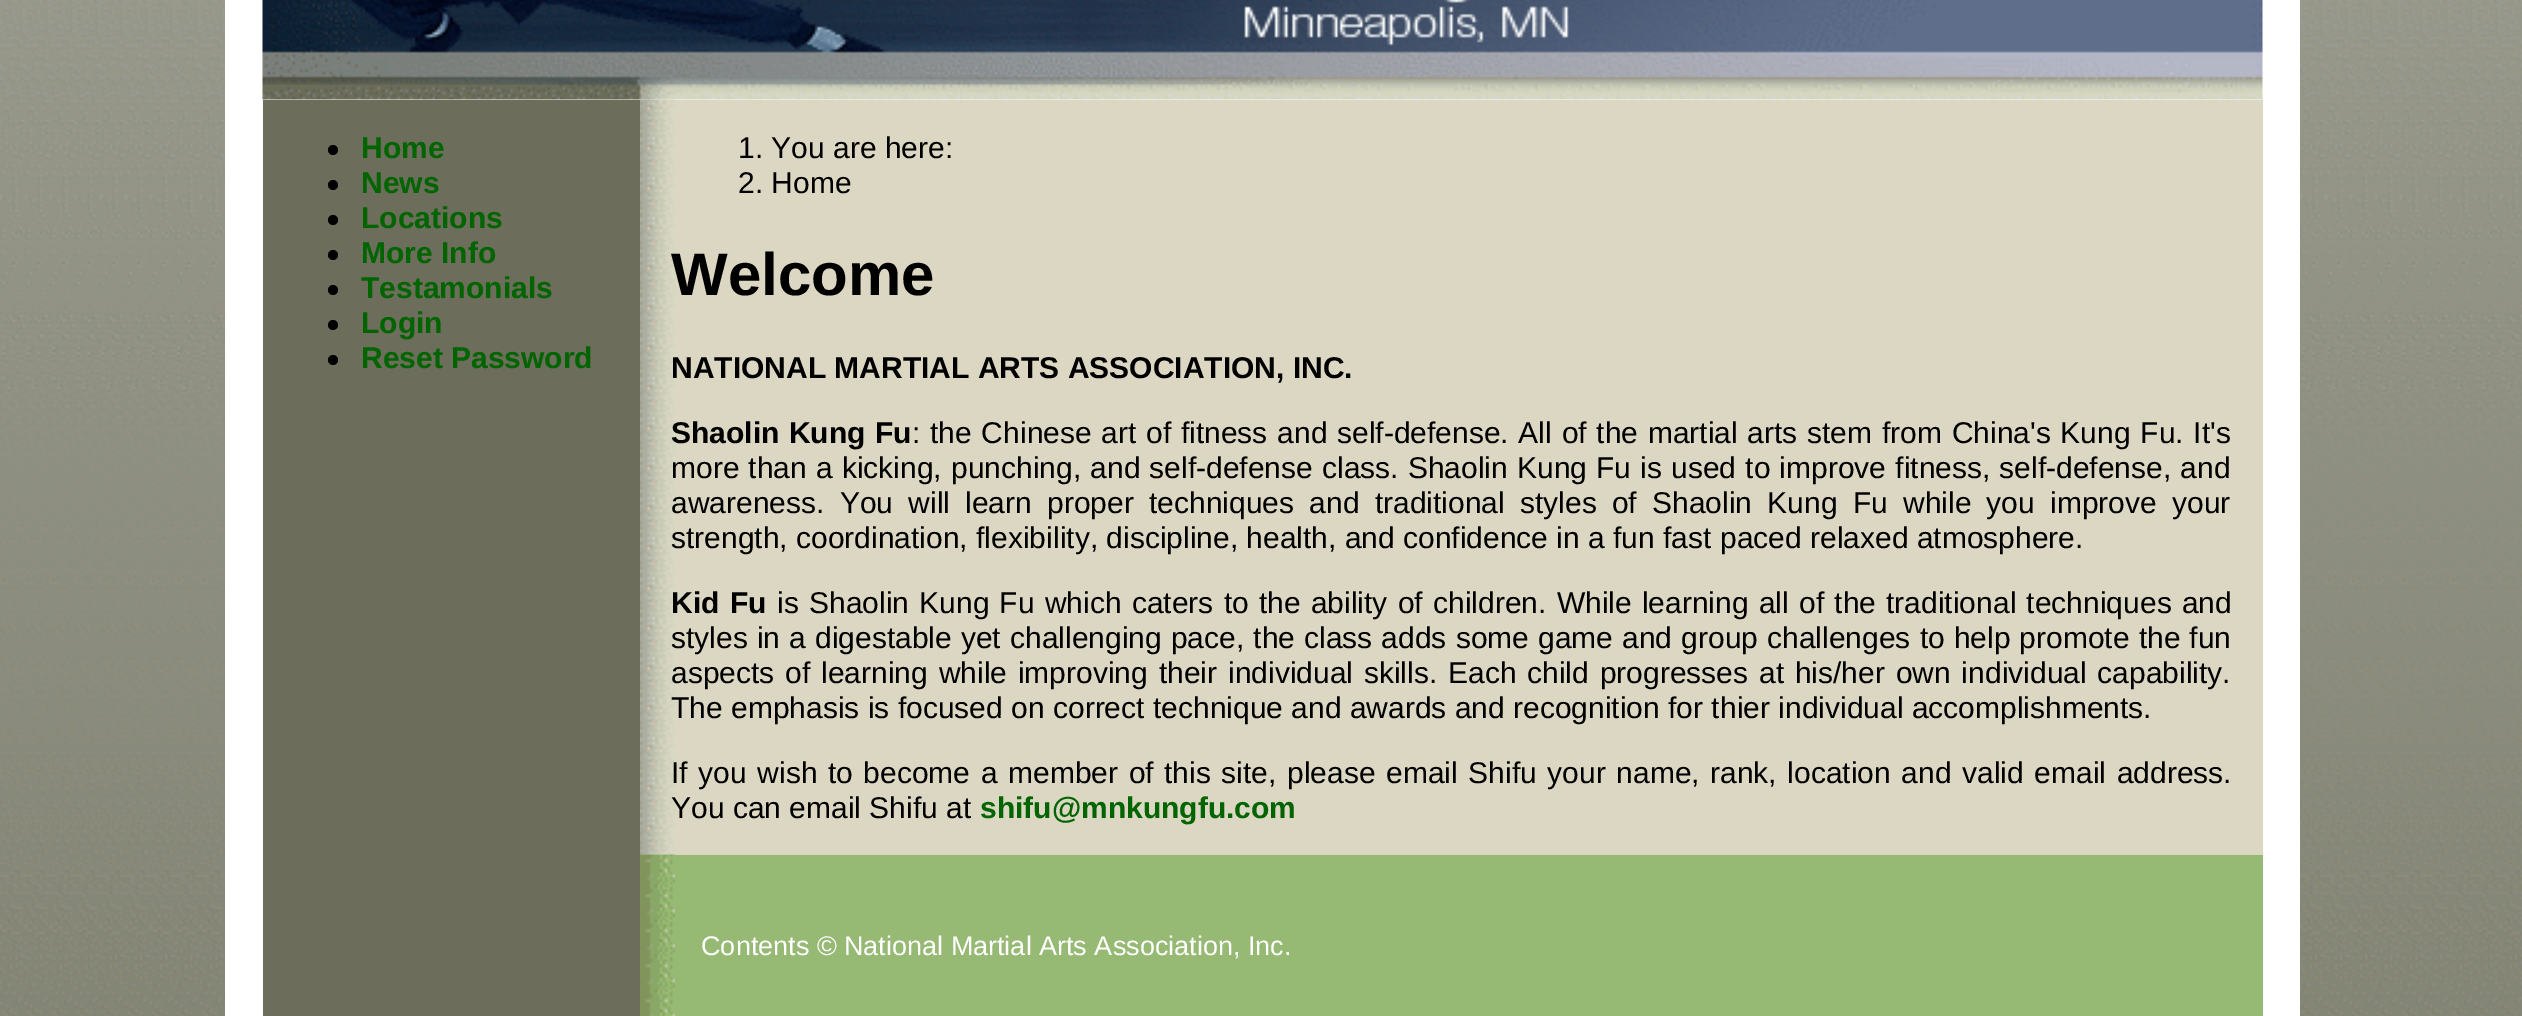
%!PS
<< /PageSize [2522 1016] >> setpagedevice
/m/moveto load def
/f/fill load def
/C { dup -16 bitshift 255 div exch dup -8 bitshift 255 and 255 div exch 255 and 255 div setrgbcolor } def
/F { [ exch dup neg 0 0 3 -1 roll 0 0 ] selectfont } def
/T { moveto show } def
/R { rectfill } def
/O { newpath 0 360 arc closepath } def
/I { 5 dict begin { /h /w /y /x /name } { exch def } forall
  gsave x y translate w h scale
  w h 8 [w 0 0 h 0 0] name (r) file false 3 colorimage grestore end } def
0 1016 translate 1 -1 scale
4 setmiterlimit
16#FFFFFF C
0 0 2522 1016 R
(1.rgb) 0 0 2522 1016 I
225 0 2075 1016 R
16#DCD7C3 C
640 100 1623 755 R
(3.rgb) 640 99 35 756 I
(2.rgb) 262 0 2001 100 I
16#6C6D5B C
263 100 377 916 R
16#000000 C
333 150 5 O f
/LiberationSans-Bold 30 F
16#006400 C
(Home) 361 158 T
16#000000 C
333 185 5 O f
16#006400 C
(News) 361 193 T
16#000000 C
333 220 5 O f
16#006400 C
(Locations) 361 228 T
16#000000 C
333 255 5 O f
16#006400 C
(More Info) 361 263 T
16#000000 C
333 290 5 O f
16#006400 C
(Testamonials) 361 298 T
16#000000 C
333 325 5 O f
16#006400 C
(Login) 361 333 T
16#000000 C
333 360 5 O f
16#006400 C
(Reset Password) 361 368 T
/LiberationSans-Regular 30 F
16#000000 C
(1. You are here:) 738 158 T
(2. Home) 738 193 T
/LiberationSans-Bold 60 F
(Welcome) 671 295 T
/LiberationSans-Bold 30 F
(NATIONAL MARTIAL ARTS ASSOCIATION, INC.) 671 378 T
671 443 m 1 0 32 (Shaolin Kung Fu) widthshow
/LiberationSans-Regular 30 F
912 443 m 1.4 0 32 (: the Chinese art of fitness and self-defense. All of the martial arts stem from China's Kung Fu. It's) widthshow
671 478 m .8 0 32 (more than a kicking, punching, and self-defense class. Shaolin Kung Fu is used to improve fitness, self-defense, and) widthshow
671 513 m 6.9 0 32 (awareness. You will learn proper techniques and traditional styles of Shaolin Kung Fu while you improve your) widthshow
(strength, coordination, flexibility, discipline, health, and confidence in a fun fast paced relaxed atmosphere.) 671 548 T
/LiberationSans-Bold 30 F
671 613 m 1.9 0 32 (Kid Fu) widthshow
/LiberationSans-Regular 30 F
777 613 m 1.9 0 32 (is Shaolin Kung Fu which caters to the ability of children. While learning all of the traditional techniques and) widthshow
671 648 m .75 0 32 (styles in a digestable yet challenging pace, the class adds some game and group challenges to help promote the fun) widthshow
671 683 m 2.5 0 32 (aspects of learning while improving their individual skills. Each child progresses at his/her own individual capability.) widthshow
(The emphasis is focused on correct technique and awards and recognition for thier individual accomplishments.) 671 718 T
671 783 m 2.25 0 32 (If you wish to become a member of this site, please email Shifu your name, rank, location and valid email address.) widthshow
(You can email Shifu at) 671 818 T
/LiberationSans-Bold 30 F
16#006400 C
(shifu@mnkungfu.com) 980 818 T
16#96BA74 C
675 855 1588 161 R
(4.rgb) 640 854 35 162 I
/LiberationSans-Regular 27 F
16#FFFFFF C
(Contents © National Martial Arts Association, Inc.) 701 955 T
showpage
